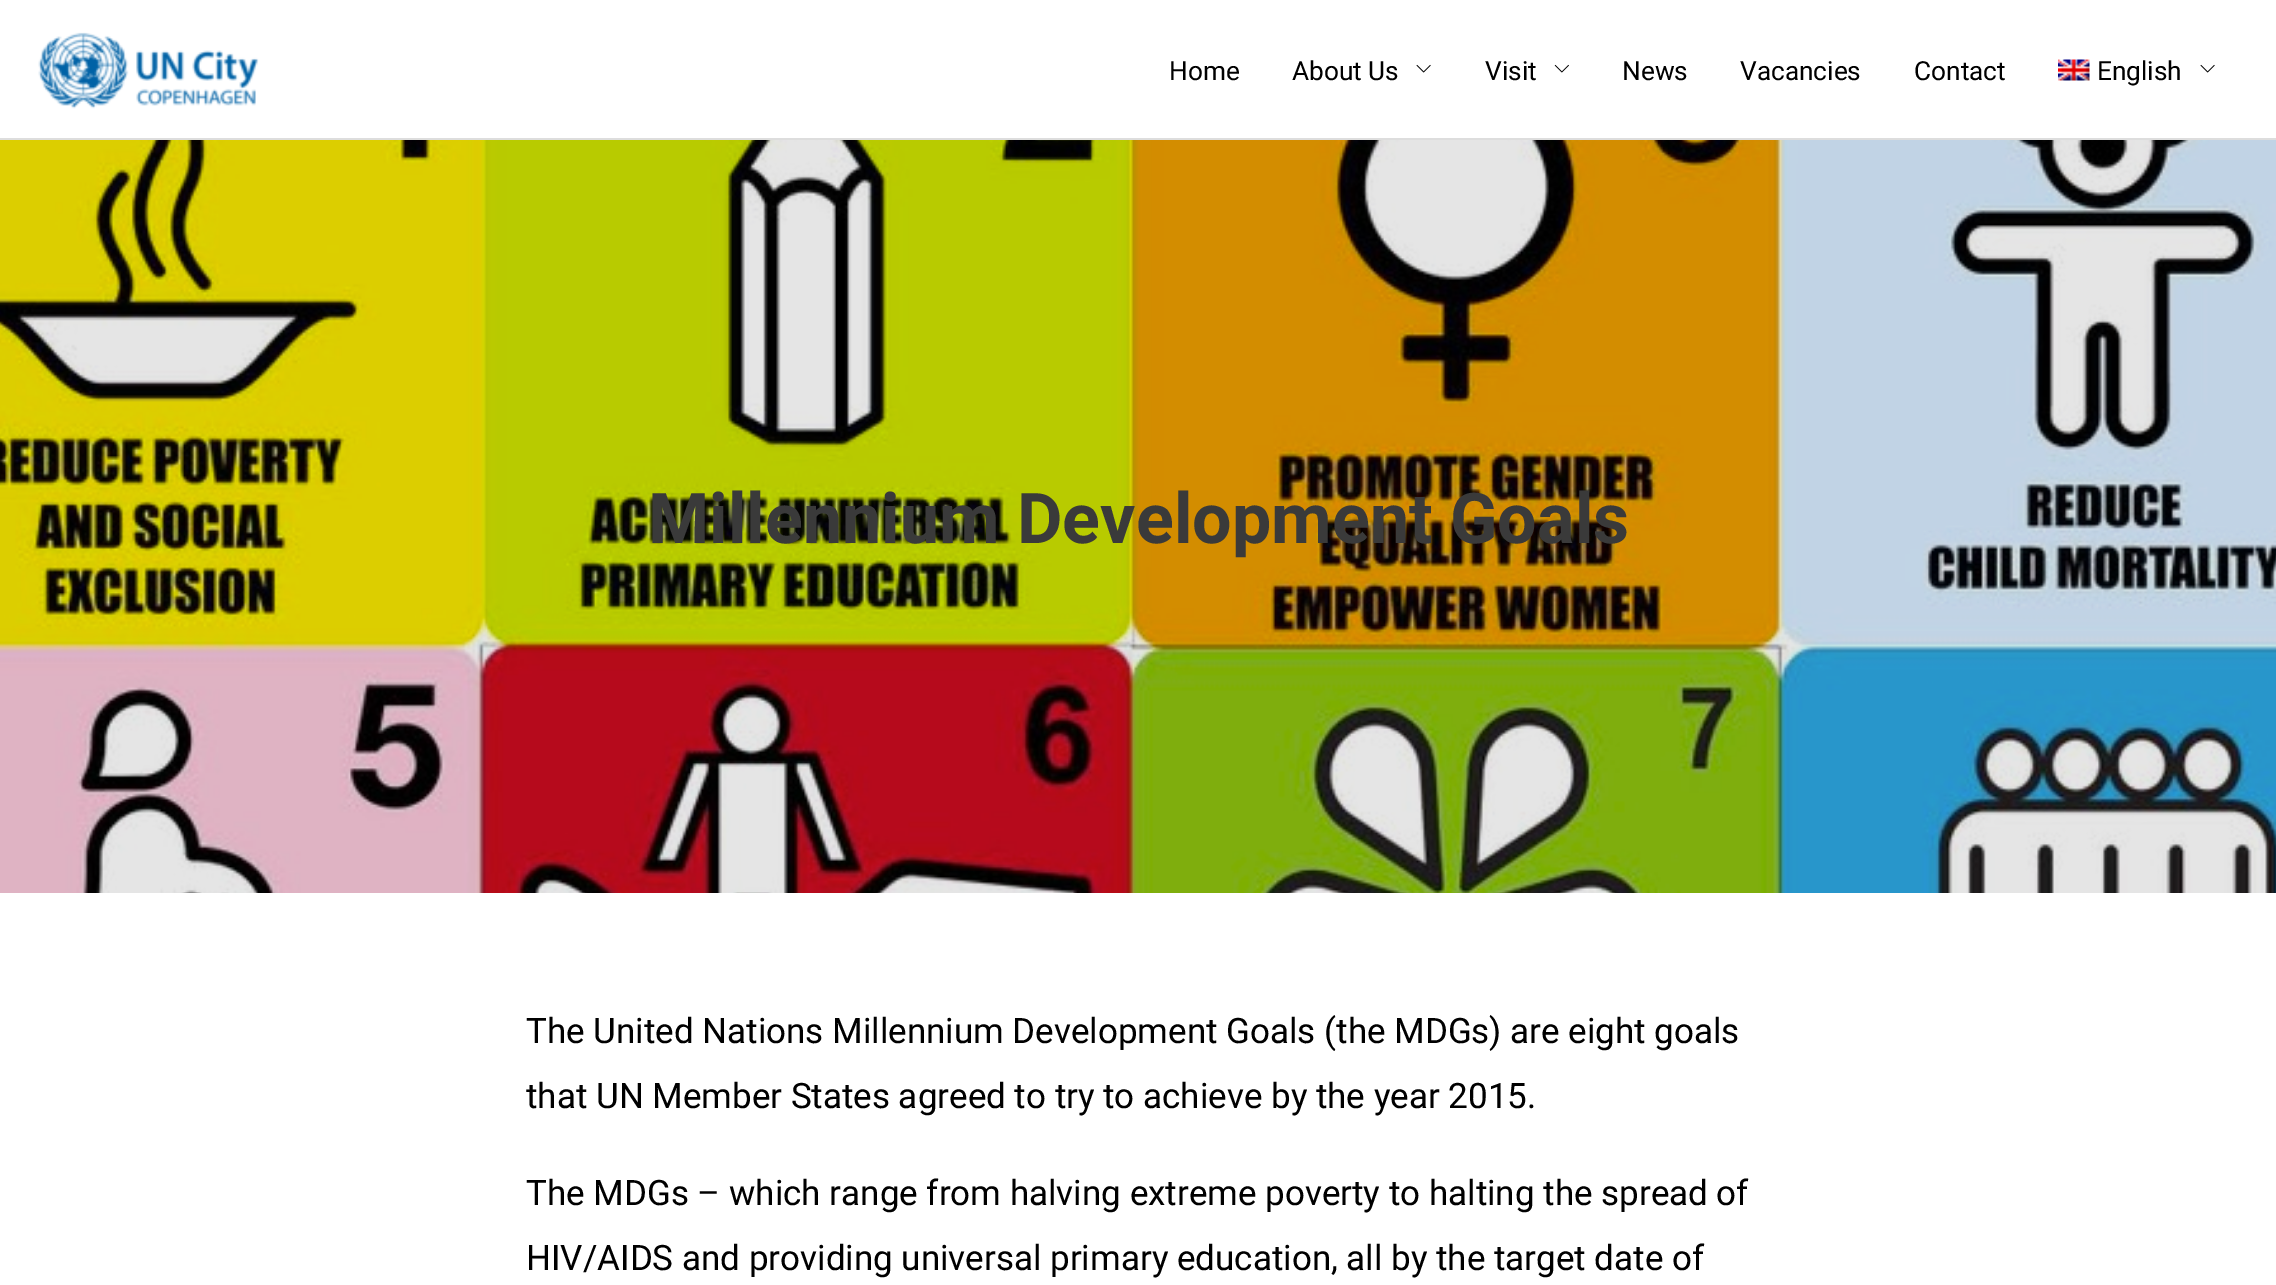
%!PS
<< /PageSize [2276 1285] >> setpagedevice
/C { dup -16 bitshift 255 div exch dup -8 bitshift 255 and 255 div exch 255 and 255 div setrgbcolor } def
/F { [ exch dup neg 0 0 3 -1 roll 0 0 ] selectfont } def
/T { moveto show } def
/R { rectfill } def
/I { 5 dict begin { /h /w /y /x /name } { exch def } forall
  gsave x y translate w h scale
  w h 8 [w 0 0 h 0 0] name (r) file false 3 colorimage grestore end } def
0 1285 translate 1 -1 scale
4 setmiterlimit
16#FFFFFF C
0 0 2276 1285 R
16#DDDDDD C
0 138 2276 2 R
(1.rgb) 38 32 221 77 I
/Roboto-Regular 26.25 F
16#000000 C
(Home) 1169 80 T
(About Us) 1292 80 T
(2.rgb) 1416 64 15 9 I
(Visit) 1485 80 T
(3.rgb) 1554 64 15 9 I
(News) 1622 80 T
(Vacancies) 1740 80 T
(Contact) 1914 80 T
(4.rgb) 2058 59 32 22 I
(English) 2097 80 T
(2.rgb) 2200 64 15 9 I
(5.rgb) 0 140 2276 753 I
/Roboto-Bold 70 F
16#3A3A3A C
(Millennium Development Goals) 648 543 T
/Roboto-Regular 35 F
16#000000 C
(The United Nations Millennium Development Goals \(the MDGs\) are eight goals) 526 1043 T
(that UN Member States agreed to try to achieve by the year 2015.) 526 1108 T
(The MDGs – which range from halving extreme poverty to halting the spread of) 526 1205 T
(HIV/AIDS and providing universal primary education, all by the target date of) 526 1270 T
showpage
